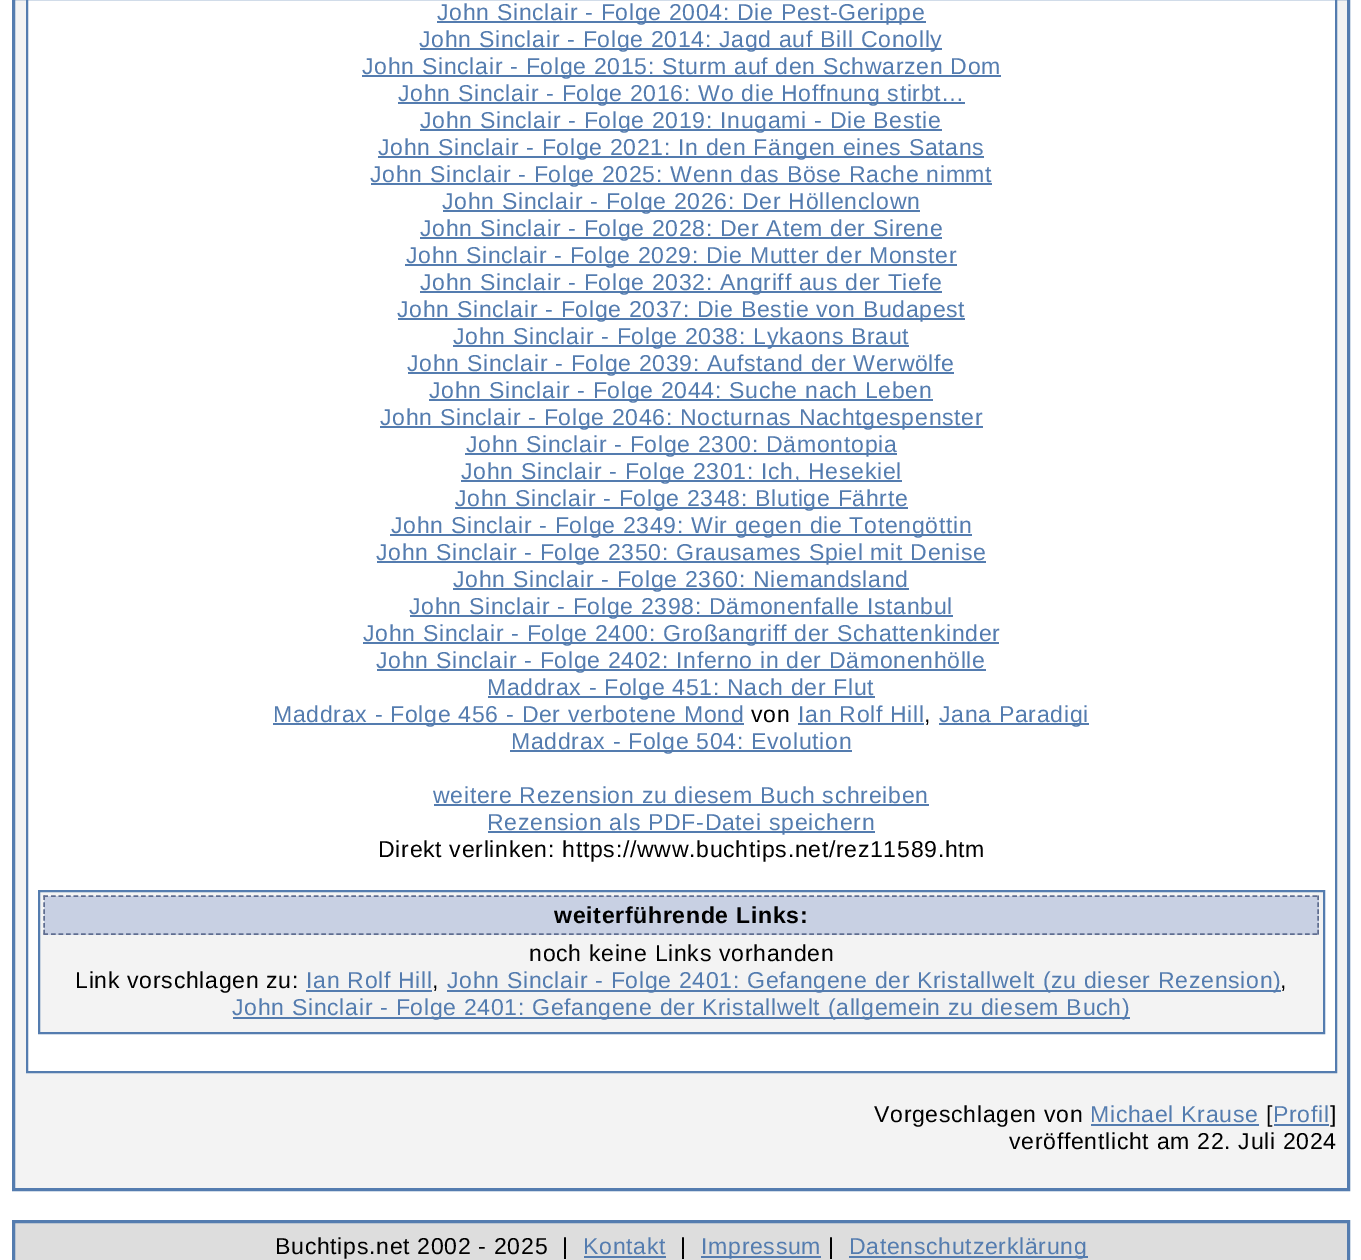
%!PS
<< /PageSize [1361 1260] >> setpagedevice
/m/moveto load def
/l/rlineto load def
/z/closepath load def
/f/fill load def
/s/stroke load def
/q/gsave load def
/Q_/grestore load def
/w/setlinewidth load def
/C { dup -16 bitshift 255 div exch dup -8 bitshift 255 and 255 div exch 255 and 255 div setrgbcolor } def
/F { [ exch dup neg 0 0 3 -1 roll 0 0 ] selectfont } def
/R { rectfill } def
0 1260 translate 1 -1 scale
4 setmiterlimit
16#FFFFFF C
0 0 1361 1260 R
16#F3F3F3 C
13.5 -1.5 m 1335 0 l 0 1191 l -1335 0 l z q f Q_
16#547CAF C
3 w
s
16#FFFFFF C
27 -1 m 1309 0 l 0 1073 l -1309 0 l z q f Q_
16#547CAF C
2 w
s
437 21 489 2 R
/LiberationSans-Regular 23.05 F
437 20 m .7 0 (John Sinclair - Folge 2004: Die Pest-Gerippe) ashow
420 48 522 2 R
419 47 m .7 0 (John Sinclair - Folge 2014: Jagd auf Bill Conolly) ashow
362 75 639 2 R
362 74 m .7 0 (John Sinclair - Folge 2015: Sturm auf den Schwarzen Dom) ashow
398 102 567 2 R
398 101 m .7 0 (John Sinclair - Folge 2016: Wo die Hoffnung stirbt…) ashow
420 129 522 2 R
420 128 m .7 0 (John Sinclair - Folge 2019: Inugami - Die Bestie) ashow
378 156 606 2 R
378 155 m .7 0 (John Sinclair - Folge 2021: In den Fängen eines Satans) ashow
371 183 621 2 R
370 182 m .7 0 (John Sinclair - Folge 2025: Wenn das Böse Rache nimmt) ashow
443 210 477 2 R
442 209 m .7 0 (John Sinclair - Folge 2026: Der Höllenclown) ashow
420 237 522 2 R
420 236 m .7 0 (John Sinclair - Folge 2028: Der Atem der Sirene) ashow
405 264 552 2 R
406 263 m .7 0 (John Sinclair - Folge 2029: Die Mutter der Monster) ashow
420 291 522 2 R
420 290 m .7 0 (John Sinclair - Folge 2032: Angriff aus der Tiefe) ashow
398 318 567 2 R
397 317 m .7 0 (John Sinclair - Folge 2037: Die Bestie von Budapest) ashow
453 345 456 2 R
453 344 m .7 0 (John Sinclair - Folge 2038: Lykaons Braut) ashow
408 372 546 2 R
407 371 m .7 0 (John Sinclair - Folge 2039: Aufstand der Werwölfe) ashow
429 399 504 2 R
429 398 m .7 0 (John Sinclair - Folge 2044: Suche nach Leben) ashow
380 426 603 2 R
380 425 m .7 0 (John Sinclair - Folge 2046: Nocturnas Nachtgespenster) ashow
465 453 432 2 R
466 452 m .7 0 (John Sinclair - Folge 2300: Dämontopia) ashow
461 480 441 2 R
461 479 m .7 0 (John Sinclair - Folge 2301: Ich, Hesekiel) ashow
455 507 453 2 R
455 506 m .7 0 (John Sinclair - Folge 2348: Blutige Fährte) ashow
390 534 582 2 R
391 533 m .7 0 (John Sinclair - Folge 2349: Wir gegen die Totengöttin) ashow
377 561 609 2 R
376 560 m .7 0 (John Sinclair - Folge 2350: Grausames Spiel mit Denise) ashow
453 588 456 2 R
453 587 m .7 0 (John Sinclair - Folge 2360: Niemandsland) ashow
410 615 543 2 R
409 614 m .7 0 (John Sinclair - Folge 2398: Dämonenfalle Istanbul) ashow
363 642 636 2 R
363 641 m .7 0 (John Sinclair - Folge 2400: Großangriff der Schattenkinder) ashow
377 669 609 2 R
376 668 m .7 0 (John Sinclair - Folge 2402: Inferno in der Dämonenhölle) ashow
488 696 387 2 R
487 695 m .7 0 (Maddrax - Folge 451: Nach der Flut) ashow
273 723 471 2 R
273 722 m .7 0 (Maddrax - Folge 456 - Der verbotene Mond) ashow
16#000000 C
751 722 m .7 0 (von) ashow
16#547CAF C
798 722 m .7 0 (Ian Rolf Hill) ashow
798 723 126 2 R
16#000000 C
924 722 m .7 0 (,) ashow
16#547CAF C
939 723 150 2 R
939 722 m .7 0 (Jana Paradigi) ashow
510 750 342 2 R
511 749 m .7 0 (Maddrax - Folge 504: Evolution) ashow
433 803 m .7 0 (weitere Rezension zu diesem Buch schreiben) ashow
434 804 495 2 R
488 831 387 2 R
487 830 m .7 0 (Rezension als PDF-Datei speichern) ashow
16#000000 C
378 857 m .7 0 (Direkt verlinken: https://www.buchtips.net/rez11589.htm) ashow
16#F3F3F3 C
39 891 m 1285 0 l 0 142 l -1285 0 l z q f Q_
16#547CAF C
s
16#C8D0E3 C
44 896 1275 39 R
16#5F6D90 C
1.5 w
[4.5 3.01] 0 setdash
43.5 896 m 1275 0 l s
[4.5 2.4] 0 setdash
1318 895.5 m 0 39 l s
[4.5 3.01] 0 setdash
43.5 934 m 1275 0 l s
[4.5 2.4] 0 setdash
44 895.5 m 0 39 l s
/LiberationSans-Bold 23.05 F
16#000000 C
554 923 m .7 0 (weiterführende Links:) ashow
/LiberationSans-Regular 23.05 F
529 961 m .7 0 (noch keine Links vorhanden) ashow
75 988 m .7 0 (Link vorschlagen zu:) ashow
16#547CAF C
306 988 m .7 0 (Ian Rolf Hill) ashow
306 990 126 2 R
16#000000 C
432 988 m .7 0 (,) ashow
16#547CAF C
447 990 834 2 R
447 988 m .7 0 (John Sinclair - Folge 2401: Gefangene der Kristallwelt \(zu dieser Rezension\)) ashow
16#000000 C
1280 988 m .7 0 (,) ashow
16#547CAF C
233 1017 897 2 R
232 1015 m .7 0 (John Sinclair - Folge 2401: Gefangene der Kristallwelt \(allgemein zu diesem Buch\)) ashow
16#000000 C
874 1122 m .7 0 (Vorgeschlagen von) ashow
16#547CAF C
1090 1122 m .7 0 (Michael Krause) ashow
1091 1124 168 2 R
16#000000 C
1266 1122 m .7 0 ([) ashow
16#547CAF C
1273 1122 m .7 0 (Profil) ashow
1274 1124 55 2 R
16#000000 C
1330 1122 m .7 0 (]) ashow
1009 1149 m .7 0 (veröffentlicht am 22. Juli 2024) ashow
16#DDDDDD C
13.5 1221.5 m 1335 0 l 0 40 l -1335 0 l z q f Q_
16#547CAF C
3 w
[] 0 setdash
s
16#000000 C
275 1254 m .7 0 (Buchtips.net 2002 - 2025  |) ashow
16#547CAF C
583 1254 m .7 0 (Kontakt) ashow
584 1256 82 2 R
16#000000 C
680 1254 m .7 0 (|) ashow
16#547CAF C
701 1256 120 2 R
701 1254 m .7 0 (Impressum) ashow
16#000000 C
828 1254 m .7 0 (|) ashow
16#547CAF C
849 1256 239 2 R
849 1254 m .7 0 (Datenschutzerklärung) ashow
showpage
